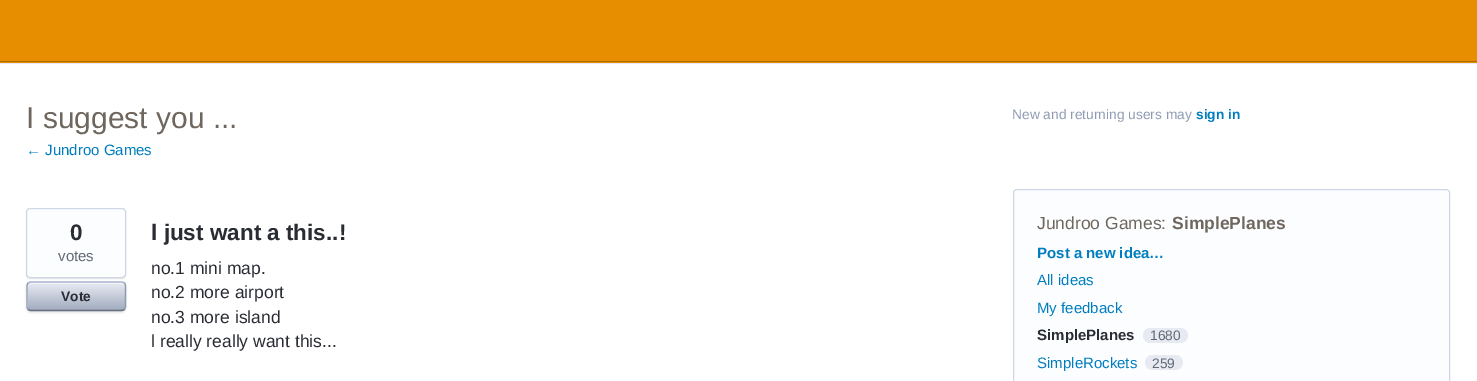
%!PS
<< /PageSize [1477 381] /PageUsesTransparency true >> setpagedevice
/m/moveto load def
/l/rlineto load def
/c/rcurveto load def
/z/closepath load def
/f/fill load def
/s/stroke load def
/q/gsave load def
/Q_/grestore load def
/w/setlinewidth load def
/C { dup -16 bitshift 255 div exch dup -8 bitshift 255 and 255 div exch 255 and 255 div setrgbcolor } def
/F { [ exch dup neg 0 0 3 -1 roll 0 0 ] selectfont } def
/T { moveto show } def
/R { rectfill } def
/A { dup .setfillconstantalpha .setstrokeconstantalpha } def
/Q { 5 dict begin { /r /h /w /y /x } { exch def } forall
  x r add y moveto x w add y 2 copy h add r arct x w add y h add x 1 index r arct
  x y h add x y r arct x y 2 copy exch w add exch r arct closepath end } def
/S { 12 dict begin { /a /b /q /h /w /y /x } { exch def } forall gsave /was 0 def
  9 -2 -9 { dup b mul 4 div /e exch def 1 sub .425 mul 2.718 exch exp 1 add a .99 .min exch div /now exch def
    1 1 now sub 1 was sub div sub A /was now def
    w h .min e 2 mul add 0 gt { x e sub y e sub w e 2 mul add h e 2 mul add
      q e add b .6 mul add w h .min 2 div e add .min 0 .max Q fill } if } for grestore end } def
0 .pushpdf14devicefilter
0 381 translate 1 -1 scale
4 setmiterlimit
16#FFFFFF C
0 0 1477 381 R
16#E68E00 C
0 0 1477 63 R
16#AD6B00 C
0 61 1477 1 R
16#E3E8F2 C
0 63 1477 1 R
/LiberationSans-Regular 30 F
16#6F675E C
(I suggest you ...) 26 128 T
/LiberationSans-Regular 15 F
16#007DBF C
(← Jundroo Games) 26 155 T
16#000000 C
26 209 100 70 4 .5 .1 S
16#FCFDFF C
26.5 208.5 99 69 3.5 Q q f Q_
16#CFD7E6 C
s
/LiberationSans-Bold 22.5 F
16#292C33 C
(0) 70 240 T
/LiberationSans-Regular 15 F
16#616973 C
(votes) 58 261 T
q
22 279 m 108 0 l 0 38 l -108 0 l z 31 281 m 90 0 l 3 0 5 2 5 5 c 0 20 l 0 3 -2 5 -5 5 c -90 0 l -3 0 -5 -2 -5 -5 c 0 -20 l 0 -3 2 -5 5 -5 c z eoclip newpath
16#000000 C
26 283 100 30 5 1 .1 S
Q_
q 28 283 97 27 4 Q clip newpath
<< /ShadingType 2 /ColorSpace /DeviceRGB /Coords [28 283 28 310] /Extend [true true] /Function << /FunctionType 2 /Domain [0 1] /C0 [.902 .918 .949] /C1 [.635 .675 .749] /N 1 >> >> shfill Q_
0.5 A
16#FFFFFF C
31 284 m 90 0 l 2 0 4 1 4 4 c 0 -9 -14 -5 -19 -5 c -59 0 l -5 0 -19 -4 -19 5 c 0 -3 1 -4 3 -4 c z f
1 A
16#A3B1CC C
1.2 w
28 283 m 1 -.5 2 -1 3 -1 c 90 0 l 1.5 0 2.5 .5 3.5 1 c s
16#8F9BB3 C
124.5 283 m .5 1 1 2 1 3 c 0 20 l 0 1.5 -.5 2.5 -1 3.5 c s
16#666F80 C
124.5 309.5 m -1 .5 -2 1 -3.5 1 c -90 0 l -1 0 -2 -.5 -3 -1 c s
16#8F9BB3 C
28 309.5 m -.5 -1 -1 -2 -1 -3.5 c 0 -20 l 0 -1 .5 -2 1 -3 c s
/LiberationSans-Bold 13.75 F
16#292C33 C
(Vote) 61 301 T
/LiberationSans-Bold 22.5 F
(l just want a this..!) 151 240 T
/LiberationSans-Regular 17.5 F
(no.1 mini map.) 151 274 T
(no.2 more airport) 151 298 T
(no.3 more island) 151 323 T
(l really really want this...) 151 347 T
/LiberationSans-Regular 13.75 F
16#8F9BB3 C
(New and returning users may) 1012 119 T
/LiberationSans-Bold 13.75 F
16#007DBF C
(sign in) 1196 119 T
16#FCFDFF C
1013.5 189.5 436 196 3.5 Q q f Q_
16#CFD7E6 C
1 w
s
/LiberationSans-Regular 17.5 F
16#6F675E C
(Jundroo Games:) 1037 229 T
/LiberationSans-Bold 17.5 F
(SimplePlanes) 1172 229 T
/LiberationSans-Bold 15 F
16#007DBF C
(Post a new idea…) 1037 258 T
/LiberationSans-Regular 15 F
(All ideas) 1037 285 T
(My feedback) 1037 313 T
/LiberationSans-Bold 15 F
16#292C33 C
(SimplePlanes) 1037 340 T
16#E7EAF2 C
1143 328 45 15 7.5 Q f
/LiberationSans-Regular 13.75 F
16#616973 C
(1680) 1150 340 T
/LiberationSans-Regular 15 F
16#007DBF C
(SimpleRockets) 1037 368 T
16#E7EAF2 C
1145 355 38 15 7.5 Q f
/LiberationSans-Regular 13.75 F
16#616973 C
(259) 1152 368 T
.poppdf14devicefilter showpage
